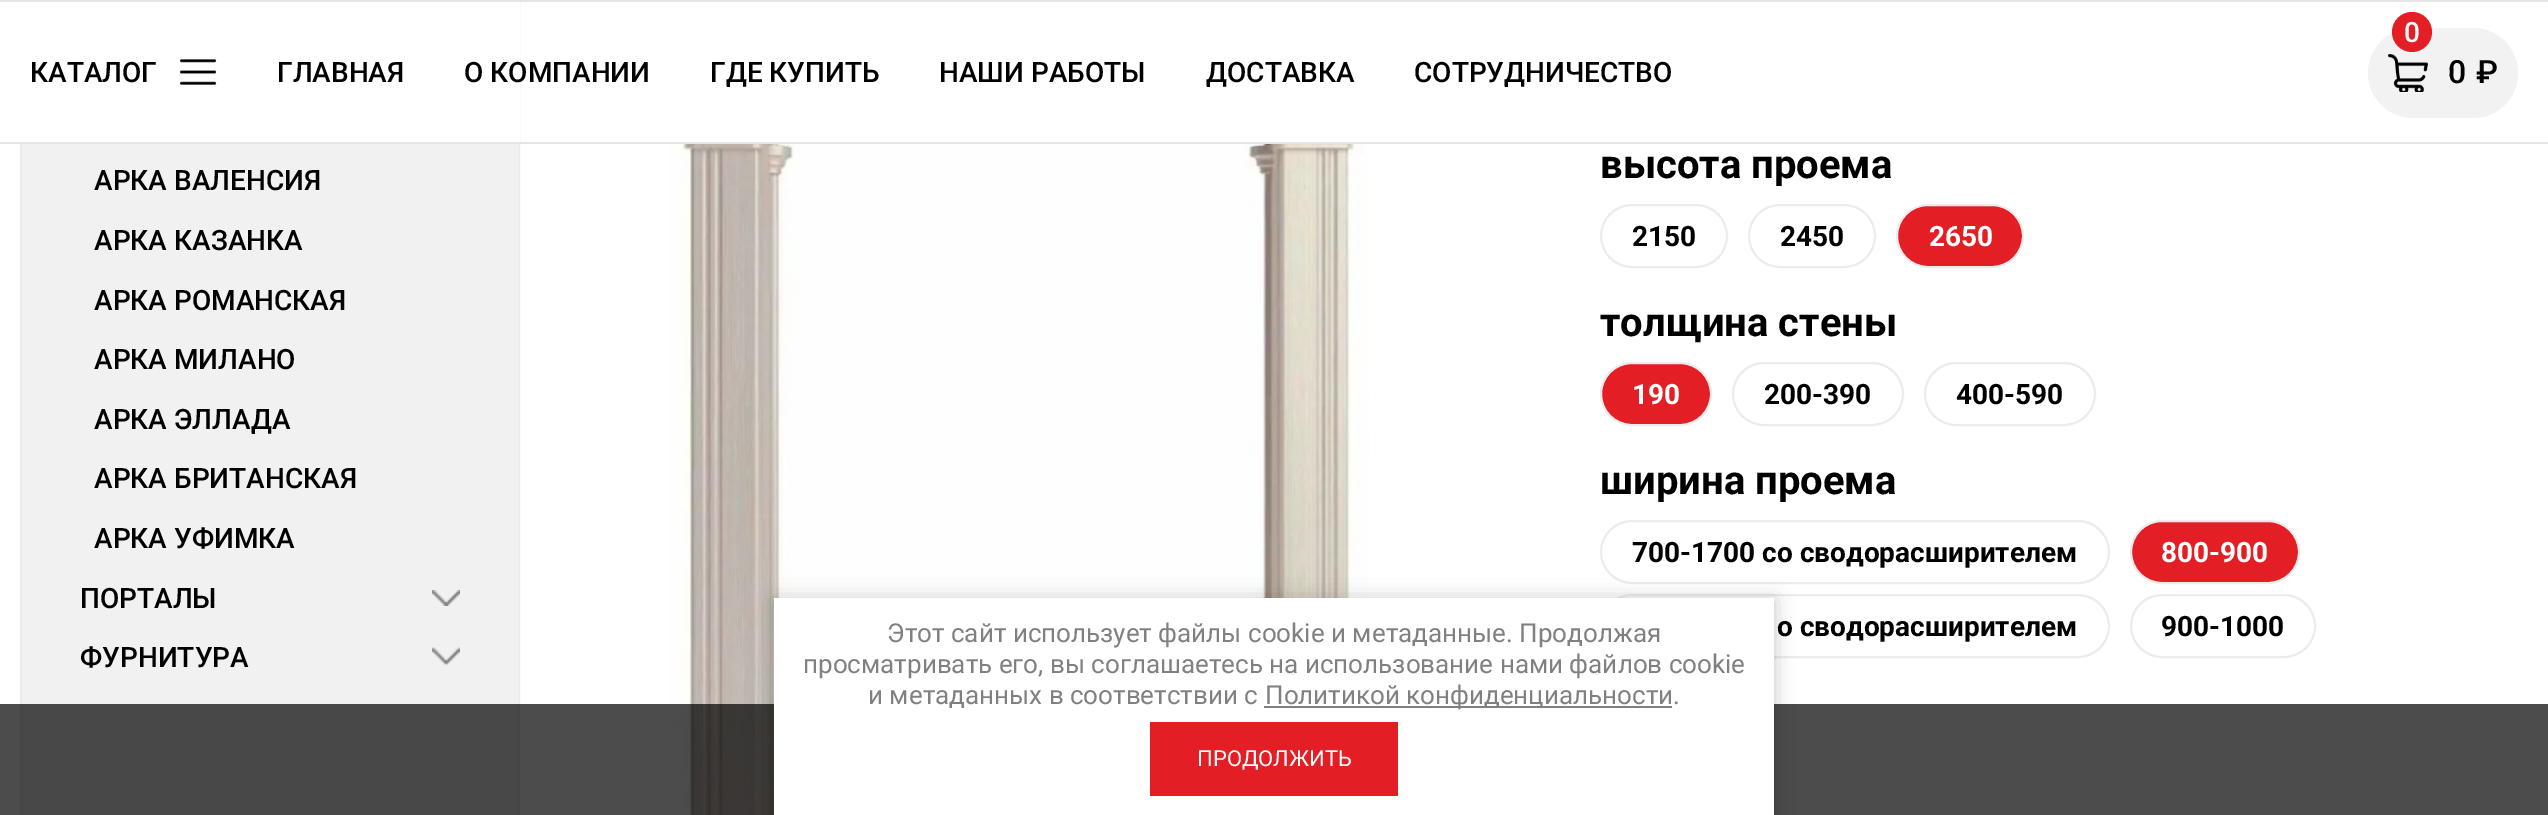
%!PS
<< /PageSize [2548 815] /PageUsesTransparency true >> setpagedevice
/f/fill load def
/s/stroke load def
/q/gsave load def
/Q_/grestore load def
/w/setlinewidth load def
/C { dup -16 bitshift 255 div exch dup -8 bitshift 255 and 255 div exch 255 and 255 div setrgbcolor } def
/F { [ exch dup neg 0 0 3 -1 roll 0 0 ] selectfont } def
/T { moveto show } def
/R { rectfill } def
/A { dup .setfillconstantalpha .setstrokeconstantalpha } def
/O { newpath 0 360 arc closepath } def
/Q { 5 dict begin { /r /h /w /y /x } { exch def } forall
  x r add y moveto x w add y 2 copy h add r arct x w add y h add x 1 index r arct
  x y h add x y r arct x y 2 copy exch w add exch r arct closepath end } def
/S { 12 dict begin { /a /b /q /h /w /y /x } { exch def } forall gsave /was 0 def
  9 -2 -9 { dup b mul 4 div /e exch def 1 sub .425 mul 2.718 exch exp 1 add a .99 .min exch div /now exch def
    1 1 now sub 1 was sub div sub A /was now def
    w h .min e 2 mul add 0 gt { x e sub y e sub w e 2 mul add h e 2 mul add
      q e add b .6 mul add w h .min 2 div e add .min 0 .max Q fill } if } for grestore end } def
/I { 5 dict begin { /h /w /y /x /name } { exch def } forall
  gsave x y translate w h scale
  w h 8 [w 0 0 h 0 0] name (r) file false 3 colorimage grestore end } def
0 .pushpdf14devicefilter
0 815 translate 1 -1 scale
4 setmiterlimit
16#FFFFFF C
0 0 2548 815 R
16#F1F1F1 C
22 144 496 671 R
16#ECECEC C
2 w
21 -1 498 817 rectstroke
16#FFFFFF C
20 2 500 140 R
16#E5E5E5 C
0 0 2548 2 R
0 142 2548 2 R
/Roboto-Medium 28 F
16#000000 C
(КАТАЛОГ) 30 82 T
(1.rgb) 180 59 37 26 I
(ГЛАВНАЯ) 277 82 T
(О КОМПАНИИ) 464 82 T
(ГДЕ КУПИТЬ) 710 82 T
(НАШИ РАБОТЫ) 939 82 T
(ДОСТАВКА) 1206 82 T
(СОТРУДНИЧЕСТВО) 1414 82 T
16#F2F2F2 C
2368 28 150 90 45 Q f
16#E31E24 C
2412 32 20 O f
16#FFFFFF C
(0) 2404 42 T
(2.rgb) 2388 54 40 38 I
/Roboto-Medium 32 F
16#000000 C
(0) 2448 83 T
(₽) 2476 83 T
/Roboto-Medium 28 F
(АРКА ВАЛЕНСИЯ) 94 190 T
(АРКА КАЗАНКА) 94 250 T
(АРКА РОМАНСКАЯ) 94 310 T
(АРКА МИЛАНО) 94 369 T
(АРКА ЭЛЛАДА) 94 429 T
(АРКА БРИТАНСКАЯ) 94 488 T
(АРКА УФИМКА) 94 548 T
(ПОРТАЛЫ) 80 608 T
(3.rgb) 432 590 28 16 I
(ФУРНИТУРА) 80 667 T
(4.rgb) 432 647 28 18 I
(5.rgb) 669 144 700 671 I
/Roboto-Bold 40 F
(высота проема) 1600 178 T
16#ECECEC C
1601 205 126 62 31 Q s
/Roboto-Bold 28 F
16#000000 C
(2150) 1632 246 T
16#ECECEC C
1749 205 126 62 31 Q s
16#000000 C
(2450) 1780 246 T
16#E31E24 C
1897 205 126 62 31 Q q f Q_
16#ECECEC C
s
16#FFFFFF C
(2650) 1929 246 T
/Roboto-Bold 40 F
16#000000 C
(толщина стены) 1600 336 T
16#E31E24 C
1601 363 110 62 31 Q q f Q_
16#ECECEC C
s
/Roboto-Bold 28 F
16#FFFFFF C
(190) 1632 404 T
16#ECECEC C
1733 363 170 62 31 Q s
16#000000 C
(200-390) 1764 404 T
16#ECECEC C
1925 363 170 62 31 Q s
16#000000 C
(400-590) 1956 404 T
/Roboto-Bold 40 F
(ширина проема) 1600 494 T
16#ECECEC C
1601 521 508 62 31 Q s
/Roboto-Bold 28 F
16#000000 C
(700-1700 со сводорасширителем) 1632 562 T
16#E31E24 C
2131 521 168 62 31 Q q f Q_
16#ECECEC C
s
16#FFFFFF C
(800-900) 2161 562 T
16#ECECEC C
1601 595 508 62 31 Q s
16#000000 C
(о сводорасширителем) 1777 636 T
16#ECECEC C
2131 595 184 62 31 Q s
16#000000 C
(900-1000) 2161 636 T
0.7 A
0 704 2548 111 R
1 A
774 600 1000 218 0 10 .23 S
16#FFFFFF C
774 598 1000 217 R
/Roboto-Regular 26 F
16#808080 C
(Этот сайт использует файлы cookie и метаданные. Продолжая) 887 642 T
(просматривать его, вы соглашаетесь на использование нами файлов cookie) 803 673 T
(и метаданных в соответствии с) 868 704 T
1264 706 408 2 R
(Политикой конфиденциальности.) 1265 704 T
16#E31E24 C
1150 722 248 74 R
/Roboto-Regular 22 F
16#FFFFFF C
(ПРОДОЛЖИТЬ) 1197 766 T
.poppdf14devicefilter showpage
